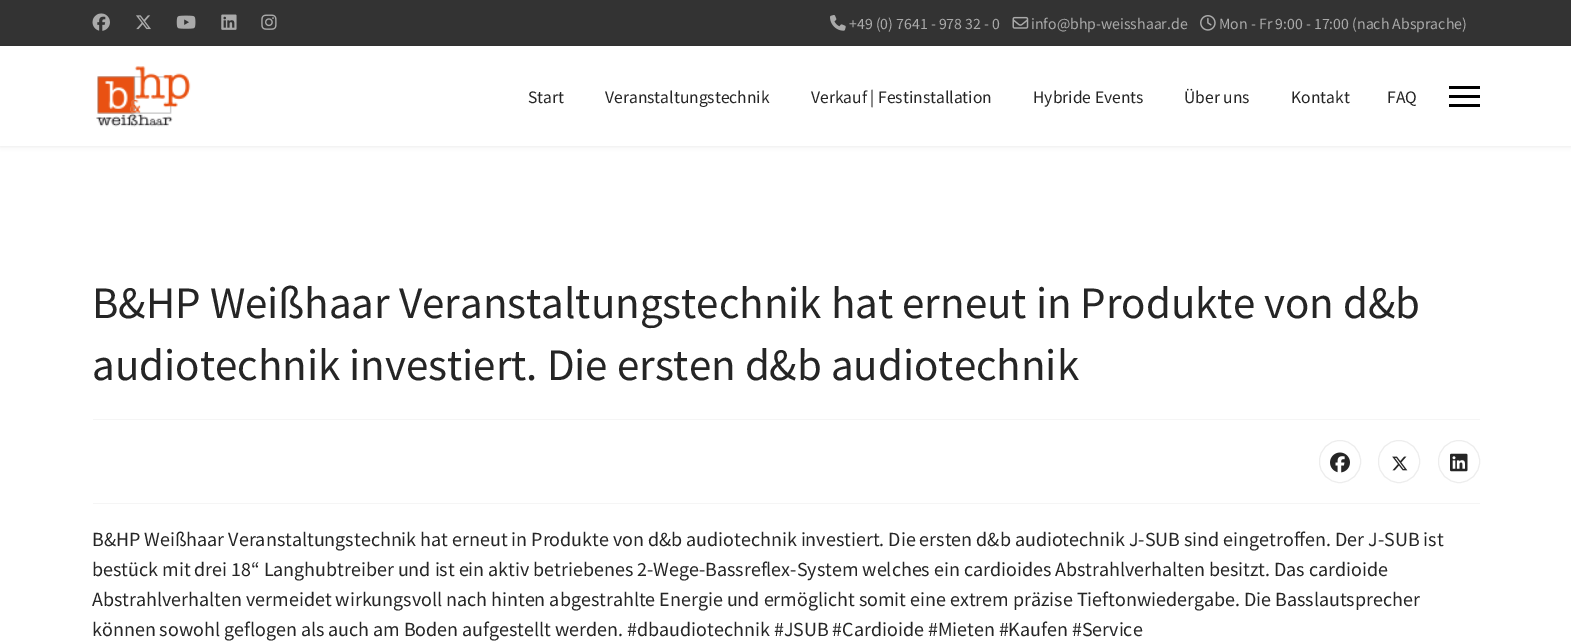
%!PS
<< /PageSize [1571 644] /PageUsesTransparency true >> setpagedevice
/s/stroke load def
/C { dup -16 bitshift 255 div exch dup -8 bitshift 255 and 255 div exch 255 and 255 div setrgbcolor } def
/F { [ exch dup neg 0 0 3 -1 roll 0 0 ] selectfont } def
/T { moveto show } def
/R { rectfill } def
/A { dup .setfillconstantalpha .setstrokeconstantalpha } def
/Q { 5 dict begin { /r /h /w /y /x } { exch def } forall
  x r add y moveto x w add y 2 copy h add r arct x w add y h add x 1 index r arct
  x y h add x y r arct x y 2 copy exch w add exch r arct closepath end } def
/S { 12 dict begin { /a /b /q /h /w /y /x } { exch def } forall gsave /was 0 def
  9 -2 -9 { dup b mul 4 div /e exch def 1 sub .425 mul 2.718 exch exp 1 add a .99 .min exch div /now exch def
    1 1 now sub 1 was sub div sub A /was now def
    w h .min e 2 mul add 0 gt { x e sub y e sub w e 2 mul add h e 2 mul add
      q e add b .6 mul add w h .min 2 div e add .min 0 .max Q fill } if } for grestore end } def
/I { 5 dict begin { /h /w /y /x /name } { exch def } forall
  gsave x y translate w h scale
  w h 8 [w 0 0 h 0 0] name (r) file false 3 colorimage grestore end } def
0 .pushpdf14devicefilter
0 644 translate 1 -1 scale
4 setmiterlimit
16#FFFFFF C
0 0 1571 644 R
16#333333 C
0 0 1571 46 R
(1.rgb) 92 13 18 18 I
(2.rgb) 136 15 15 15 I
(3.rgb) 176 15 20 14 I
(4.rgb) 221 14 16 16 I
(5.rgb) 261 14 16 16 I
(6.rgb) 830 15 16 16 I
/SourceSansPro-Regular 15.75 F
16#AAAAAA C
(+49 \(0\) 7641 - 978 32 - 0) 849 29 T
(7.rgb) 1012 16 17 13 I
(info@bhp-weisshaar.de) 1031 29 T
(8.rgb) 1200 15 16 16 I
(Mon - Fr 9:00 - 17:00 \(nach Absprache\)) 1219 29 T
16#000000 C
0 46 1571 100 0 2.5 .1 S
16#FFFFFF C
0 46 1571 100 R
(9.rgb) 96 66 95 61 I
/SourceSansPro-Regular 17.5 F
16#252525 C
(Start) 528 103 T
(Veranstaltungstechnik) 605 103 T
(Verkauf | Festinstallation) 811 103 T
(Hybride Events) 1033 103 T
(Über uns) 1184 103 T
(Kontakt) 1291 103 T
(FAQ) 1387 103 T
16#000000 C
1449 86 31 3 R
1449 95 31 3 R
1449 104 31 3 R
/SourceSansPro-Regular 45 F
16#252525 C
(B&HP Weißhaar Veranstaltungstechnik hat erneut in Produkte von d&b) 92 318 T
(audiotechnik investiert. Die ersten d&b audiotechnik) 92 380 T
16#F5F5F5 C
93 419 1387 1 R
93 503 1387 1 R
16#EDEDED C
1319.5 440.5 41 42 20.5 Q s
(10.rgb) 1330 452 20 21 I
1378.5 440.5 41 42 20.5 Q s
(11.rgb) 1392 456 16 15 I
1438.5 440.5 41 42 20.5 Q s
(12.rgb) 1450 453 18 19 I
/SourceSansPro-Regular 20 F
16#252525 C
(B&HP Weißhaar Veranstaltungstechnik hat erneut in Produkte von d&b audiotechnik investiert. Die ersten d&b audiotechnik J-SUB sind eingetroffen. Der J-SUB ist) 92 546 T
(bestück mit drei 18“ Langhubtreiber und ist ein aktiv betriebenes 2-Wege-Bassreflex-System welches ein cardioides Abstrahlverhalten besitzt. Das cardioide) 92 576 T
(Abstrahlverhalten vermeidet wirkungsvoll nach hinten abgestrahlte Energie und ermöglicht somit eine extrem präzise Tieftonwiedergabe. Die Basslautsprecher) 92 606 T
(können sowohl geflogen als auch am Boden aufgestellt werden. #dbaudiotechnik #JSUB #Cardioide #Mieten #Kaufen #Service) 92 636 T
.poppdf14devicefilter showpage
